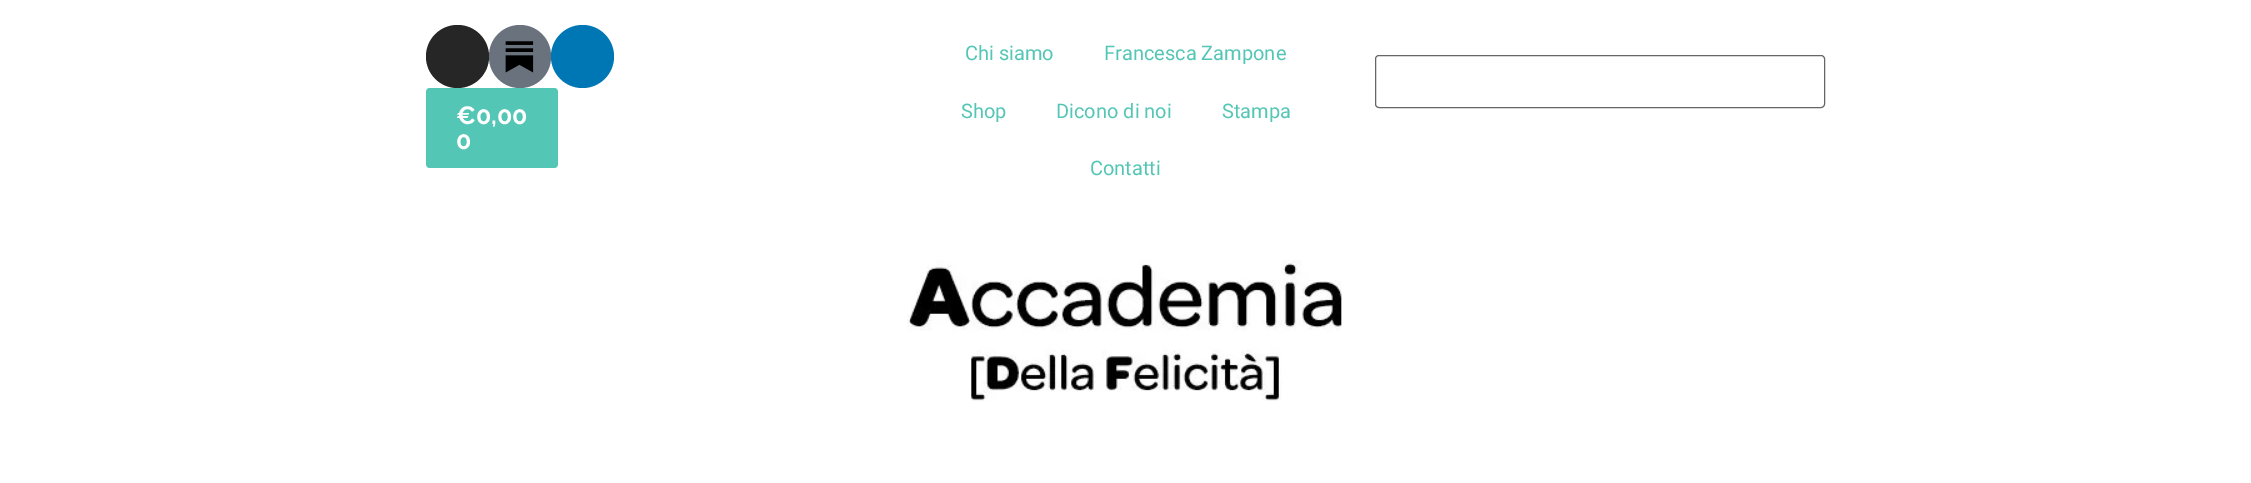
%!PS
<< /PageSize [2251 483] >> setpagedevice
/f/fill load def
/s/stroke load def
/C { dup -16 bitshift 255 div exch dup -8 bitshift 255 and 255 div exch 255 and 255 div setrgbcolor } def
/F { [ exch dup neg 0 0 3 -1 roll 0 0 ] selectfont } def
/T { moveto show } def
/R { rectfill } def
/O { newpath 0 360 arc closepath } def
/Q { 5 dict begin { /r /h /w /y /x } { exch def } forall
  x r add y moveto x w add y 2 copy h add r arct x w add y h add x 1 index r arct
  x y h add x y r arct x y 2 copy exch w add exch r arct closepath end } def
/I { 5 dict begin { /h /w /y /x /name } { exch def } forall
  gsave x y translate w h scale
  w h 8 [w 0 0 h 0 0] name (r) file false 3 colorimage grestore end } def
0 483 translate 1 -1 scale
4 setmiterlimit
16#FFFFFF C
0 0 2251 483 R
/Roboto-Regular 20 F
16#54C6B5 C
(Chi siamo) 965 60 T
(Francesca Zampone) 1104 60 T
(Shop) 961 118 T
(Dicono di noi) 1056 118 T
(Stampa) 1222 118 T
(Contatti) 1090 175 T
16#666666 C
1375.5 55.5 449 52 3.5 Q s
16#262626 C
457.5 56.5 31.5 O f
16#69727D C
489 25 62 63 31 Q f
(1.rgb) 505 41 29 32 I
16#0077B5 C
582.5 56.5 31.5 O f
16#54C6B5 C
426 88 132 80 4 Q f
/Raleway-Bold 25 F
16#FFFFFF C
(€0,00) 456 124 T
(0) 456 149 T
(2.rgb) 907 260 435 141 I
showpage
